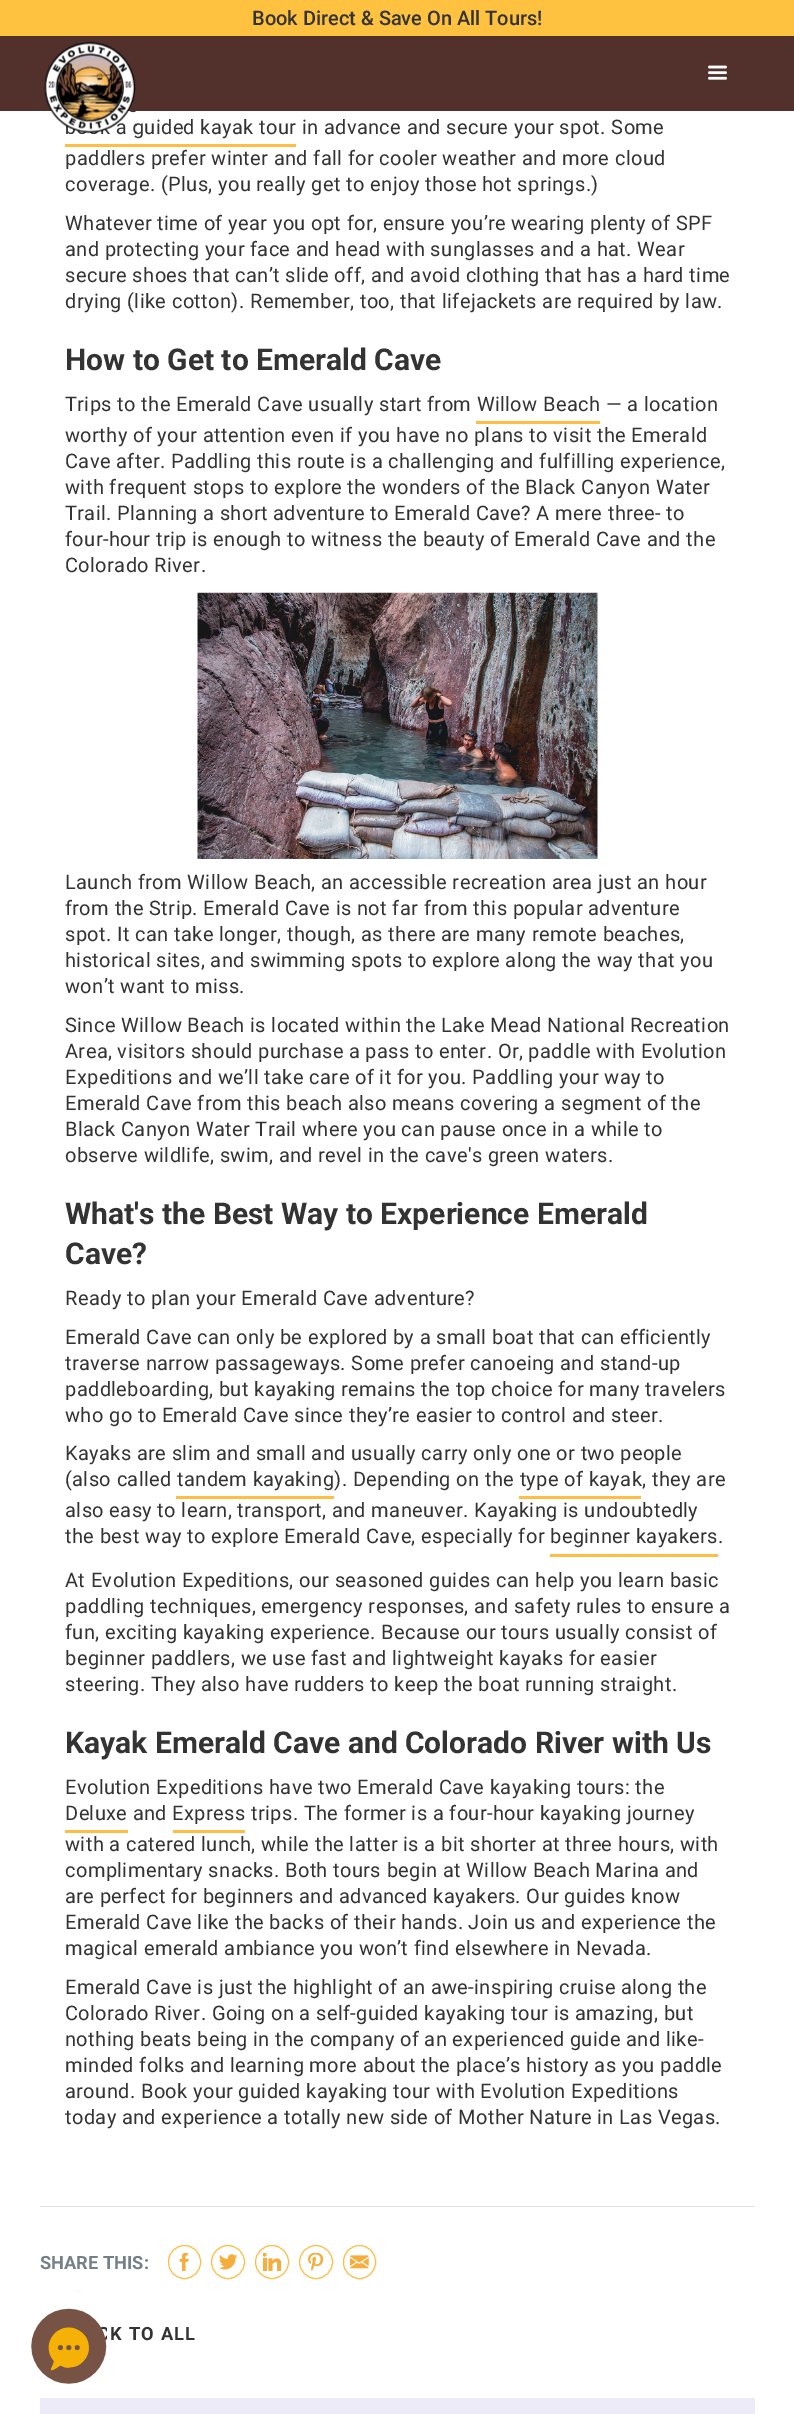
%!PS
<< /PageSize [794 2414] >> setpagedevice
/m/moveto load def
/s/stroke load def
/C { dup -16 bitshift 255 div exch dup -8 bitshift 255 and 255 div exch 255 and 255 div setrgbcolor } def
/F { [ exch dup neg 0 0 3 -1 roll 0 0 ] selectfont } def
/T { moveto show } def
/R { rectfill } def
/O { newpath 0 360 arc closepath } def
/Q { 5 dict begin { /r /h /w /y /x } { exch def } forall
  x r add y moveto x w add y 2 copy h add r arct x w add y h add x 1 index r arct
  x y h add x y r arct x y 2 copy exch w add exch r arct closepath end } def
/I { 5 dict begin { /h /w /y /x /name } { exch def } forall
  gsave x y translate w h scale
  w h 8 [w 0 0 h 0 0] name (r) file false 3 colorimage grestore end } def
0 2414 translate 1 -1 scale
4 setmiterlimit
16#FFFFFF C
0 0 794 2414 R
16#52302C C
0 36 794 75 R
16#FEC240 C
0 0 794 36 R
/Roboto-Medium 20 F
16#333333 C
(Book Direct & Save On All Tours!) 252 25 T
/Roboto-Regular 20 F
116 134 m .38 0 (a guided kayak tour in advance and secure your spot. Some) ashow
(1.rgb) 44 41 92 93 I
(2.rgb) 708 65 19 15 I
16#FFBD42 C
65 144 231 3 R
16#333333 C
65 165 m .38 0 (paddlers prefer winter and fall for cooler weather and more cloud) ashow
65 191 m .38 0 (coverage. \(Plus, you really get to enjoy those hot springs.\)) ashow
65 230 m .38 0 (Whatever time of year you opt for, ensure you’re wearing plenty of SPF) ashow
65 256 m .38 0 (and protecting your face and head with sunglasses and a hat. Wear) ashow
65 282 m .38 0 (secure shoes that can’t slide off, and avoid clothing that has a hard time) ashow
65 308 m .38 0 (drying \(like cotton\). Remember, too, that lifejackets are required by law.) ashow
/Roboto-Bold 30 F
(How to Get to Emerald Cave) 65 370 T
/Roboto-Regular 20 F
65 411 m .38 0 (Trips to the Emerald Cave usually start from Willow Beach — a location) ashow
16#FFBD42 C
476 421 124 3 R
16#333333 C
65 442 m .38 0 (worthy of your attention even if you have no plans to visit the Emerald) ashow
65 468 m .38 0 (Cave after. Paddling this route is a challenging and fulfilling experience,) ashow
65 494 m .38 0 (with frequent stops to explore the wonders of the Black Canyon Water) ashow
65 520 m .38 0 (Trail. Planning a short adventure to Emerald Cave? A mere three- to) ashow
65 546 m .38 0 (four-hour trip is enough to witness the beauty of Emerald Cave and the) ashow
65 572 m .38 0 (Colorado River.) ashow
(3.rgb) 197 592 401 267 I
65 889 m .38 0 (Launch from Willow Beach, an accessible recreation area just an hour) ashow
65 915 m .38 0 (from the Strip. Emerald Cave is not far from this popular adventure) ashow
65 941 m .38 0 (spot. It can take longer, though, as there are many remote beaches,) ashow
65 967 m .38 0 (historical sites, and swimming spots to explore along the way that you) ashow
65 993 m .38 0 (won’t want to miss.) ashow
65 1032 m .38 0 (Since Willow Beach is located within the Lake Mead National Recreation) ashow
65 1058 m .38 0 (Area, visitors should purchase a pass to enter. Or, paddle with Evolution) ashow
65 1084 m .38 0 (Expeditions and we’ll take care of it for you. Paddling your way to) ashow
65 1110 m .38 0 (Emerald Cave from this beach also means covering a segment of the) ashow
65 1136 m .38 0 (Black Canyon Water Trail where you can pause once in a while to) ashow
65 1162 m .38 0 (observe wildlife, swim, and revel in the cave's green waters.) ashow
/Roboto-Bold 30 F
(What's the Best Way to Experience Emerald) 65 1224 T
(Cave?) 65 1264 T
/Roboto-Regular 20 F
65 1305 m .38 0 (Ready to plan your Emerald Cave adventure?) ashow
65 1344 m .38 0 (Emerald Cave can only be explored by a small boat that can efficiently) ashow
65 1370 m .38 0 (traverse narrow passageways. Some prefer canoeing and stand-up) ashow
65 1396 m .38 0 (paddleboarding, but kayaking remains the top choice for many travelers) ashow
65 1422 m .38 0 (who go to Emerald Cave since they’re easier to control and steer.) ashow
65 1460 m .38 0 (Kayaks are slim and small and usually carry only one or two people) ashow
65 1486 m .38 0 (\(also called tandem kayaking\). Depending on the type of kayak, they are) ashow
16#FFBD42 C
176 1496 158 3 R
519 1496 122 3 R
16#333333 C
65 1517 m .38 0 (also easy to learn, transport, and maneuver. Kayaking is undoubtedly) ashow
65 1543 m .38 0 (the best way to explore Emerald Cave, especially for beginner kayakers.) ashow
16#FFBD42 C
550 1554 168 3 R
16#333333 C
65 1587 m .38 0 (At Evolution Expeditions, our seasoned guides can help you learn basic) ashow
65 1613 m .38 0 (paddling techniques, emergency responses, and safety rules to ensure a) ashow
65 1639 m .38 0 (fun, exciting kayaking experience. Because our tours usually consist of) ashow
65 1665 m .38 0 (beginner paddlers, we use fast and lightweight kayaks for easier) ashow
65 1691 m .38 0 (steering. They also have rudders to keep the boat running straight.) ashow
/Roboto-Bold 30 F
(Kayak Emerald Cave and Colorado River with Us) 65 1753 T
/Roboto-Regular 20 F
65 1794 m .38 0 (Evolution Expeditions have two Emerald Cave kayaking tours: the) ashow
16#FFBD42 C
65 1830 63 3 R
16#333333 C
65 1820 m .38 0 (Deluxe and Express trips. The former is a four-hour kayaking journey) ashow
16#FFBD42 C
173 1830 72 3 R
16#333333 C
65 1851 m .38 0 (with a catered lunch, while the latter is a bit shorter at three hours, with) ashow
65 1877 m .38 0 (complimentary snacks. Both tours begin at Willow Beach Marina and) ashow
65 1903 m .38 0 (are perfect for beginners and advanced kayakers. Our guides know) ashow
65 1929 m .38 0 (Emerald Cave like the backs of their hands. Join us and experience the) ashow
65 1955 m .38 0 (magical emerald ambiance you won’t find elsewhere in Nevada.) ashow
65 1994 m .38 0 (Emerald Cave is just the highlight of an awe-inspiring cruise along the) ashow
65 2020 m .38 0 (Colorado River. Going on a self-guided kayaking tour is amazing, but) ashow
65 2046 m .38 0 (nothing beats being in the company of an experienced guide and like-) ashow
65 2072 m .38 0 (minded folks and learning more about the place’s history as you paddle) ashow
65 2098 m .38 0 (around. Book your guided kayaking tour with Evolution Expeditions) ashow
65 2124 m .38 0 (today and experience a totally new side of Mother Nature in Las Vegas.) ashow
16#E0E0E0 C
40 2206 715 1 R
/Roboto-Bold 18.25 F
16#758086 C
(SHARE THIS:) 40 2269 T
(4.rgb) 179 2253 10 18 I
16#FFBD42 C
168.5 2245.5 32 33 16 Q s
(5.rgb) 219 2254 19 16 I
228 2262 16.5 O s
(6.rgb) 263 2253 18 18 I
272 2262 16.5 O s
(7.rgb) 308 2253 16 18 I
316 2262 16.5 O s
(8.rgb) 350 2255 19 14 I
343.5 2245.5 32 33 16 Q s
16#333333 C
110 2340 m 1.25 0 (K TO ALL) ashow
16#EDEBF8 C
40 2398 715 16 R
(9.rgb) 31 2290 76 94 I
showpage
